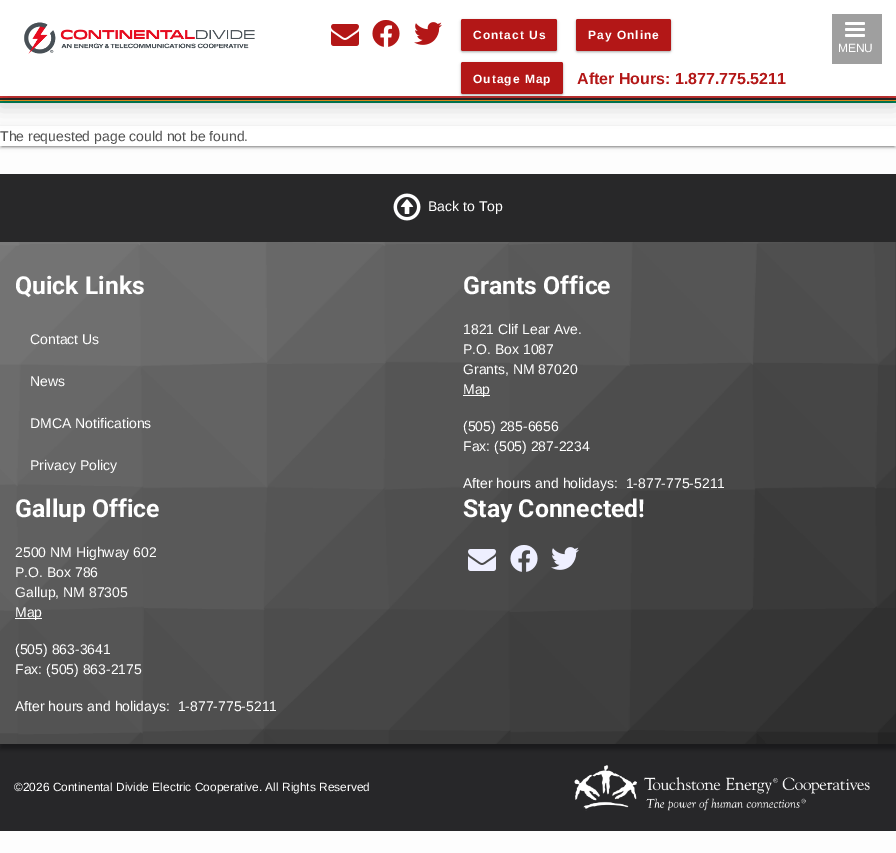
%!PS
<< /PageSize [896 853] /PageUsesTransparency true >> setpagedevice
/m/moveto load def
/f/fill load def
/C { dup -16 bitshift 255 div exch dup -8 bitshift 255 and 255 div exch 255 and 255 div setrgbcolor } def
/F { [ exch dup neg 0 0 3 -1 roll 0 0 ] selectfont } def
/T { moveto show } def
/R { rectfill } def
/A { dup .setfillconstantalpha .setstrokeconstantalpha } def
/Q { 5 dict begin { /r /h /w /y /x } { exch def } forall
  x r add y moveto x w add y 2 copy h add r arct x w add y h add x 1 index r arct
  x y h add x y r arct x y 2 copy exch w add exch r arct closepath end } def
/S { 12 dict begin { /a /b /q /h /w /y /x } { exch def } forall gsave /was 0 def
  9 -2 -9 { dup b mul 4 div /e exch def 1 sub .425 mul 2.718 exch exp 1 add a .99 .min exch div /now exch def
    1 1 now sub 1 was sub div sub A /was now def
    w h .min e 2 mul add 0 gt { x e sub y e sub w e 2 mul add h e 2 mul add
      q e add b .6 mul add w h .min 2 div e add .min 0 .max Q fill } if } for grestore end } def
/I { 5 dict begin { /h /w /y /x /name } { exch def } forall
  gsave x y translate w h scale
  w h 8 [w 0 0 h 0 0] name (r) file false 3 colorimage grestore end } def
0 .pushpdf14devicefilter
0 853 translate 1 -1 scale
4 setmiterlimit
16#FDFDFD C
0 0 896 853 R
16#D73636 C
0 96 896 2 R
16#282829 C
0 98 896 2 R
16#F8991C C
0 100 896 1 R
16#008457 C
0 101 896 2 R
16#000000 C
0 127 896 20 0 2.5 .12 S
2 131 892 16 0 .5 .2 S
0 128 896 20 0 1 .14 S
16#FFFFFF C
0 126 896 20 R
16#000000 C
0 10 896 96 0 10 .18 S
16#FFFFFF C
0 0 896 96 R
(1.rgb) 24 22 231 32 I
(2.rgb) 331 24 28 22 I
(3.rgb) 372 20 28 27 I
(4.rgb) 414 22 28 23 I
16#000000 C
461 20 96 32 2 1 .24 S
461 20 96 32 2 1.5 .12 S
16#B31717 C
461 19 96 32 2 Q f
/LiberationSans-Bold 12 F
16#FFFFFF C
473 39 m 1 0 (Contact Us) ashow
16#000000 C
576 20 95 32 2 1 .24 S
576 20 95 32 2 1.5 .12 S
16#B31717 C
576 19 95 32 2 Q f
16#FFFFFF C
588 39 m 1 0 (Pay Online) ashow
16#000000 C
461 63 102 32 2 1 .24 S
461 63 102 32 2 1.5 .12 S
16#B31717 C
461 62 102 32 2 Q f
16#FFFFFF C
473 83 m 1 0 (Outage Map) ashow
/LiberationSans-Bold 16 F
16#B31717 C
(After Hours: 1.877.775.5211) 577 84 T
16#9F9F9F C
832 14 50 50 R
16#FFFFFF C
845 22 20 3 1.5 Q f
845 28 20 3 1.5 Q f
845 34 20 3 1.5 Q f
/LiberationSans-Regular 11.9 F
(MENU) 838 52 T
/LiberationSans-Regular 14 F
16#515151 C
(The requested page could not be found.) 0 141 T
16#282829 C
0 174 896 68 R
(5.rgb) 393 193 28 28 I
16#FFFFFF C
(Back to Top) 428 211 T
16#272729 C
0 744 896 87 R
16#000000 C
0 247 896 502 0 2.5 .35 S
16#272727 C
0 242 896 502 R
(6.rgb) 0 242 896 502 I
/Roboto-Bold 24.75 F
16#FFFFFF C
(Quick Links) 15 294 T
/LiberationSans-Regular 14 F
(Contact Us) 30 344 T
(News) 30 386 T
(DMCA Notifications) 30 428 T
(Privacy Policy) 30 470 T
/Roboto-Bold 24.75 F
(Grants Office) 463 294 T
/LiberationSans-Regular 14 F
(1821 Clif Lear Ave.) 463 334 T
(P.O. Box 1087) 463 354 T
(Grants, NM 87020) 463 374 T
463 395 27 1 R
(Map) 463 394 T
(\(505\) 285-6656) 463 431 T
(Fax: \(505\) 287-2234) 463 451 T
(After hours and holidays:  1-877-775-5211) 463 488 T
/Roboto-Bold 24.75 F
(Gallup Office) 15 517 T
/LiberationSans-Regular 14 F
(2500 NM Highway 602) 15 557 T
(P.O. Box 786) 15 577 T
(Gallup, NM 87305) 15 597 T
15 618 27 1 R
(Map) 15 617 T
(\(505\) 863-3641) 15 654 T
(Fax: \(505\) 863-2175) 15 674 T
(After hours and holidays:  1-877-775-5211) 15 711 T
/Roboto-Bold 24.75 F
(Stay Connected!) 463 517 T
(7.rgb) 468 549 28 22 I
(8.rgb) 510 545 28 27 I
(9.rgb) 551 547 28 23 I
/LiberationSans-Regular 11.9 F
(©2026 Continental Divide Electric Cooperative. All Rights Reserved) 14 791 T
(10.rgb) 574 765 296 46 I
.poppdf14devicefilter showpage
